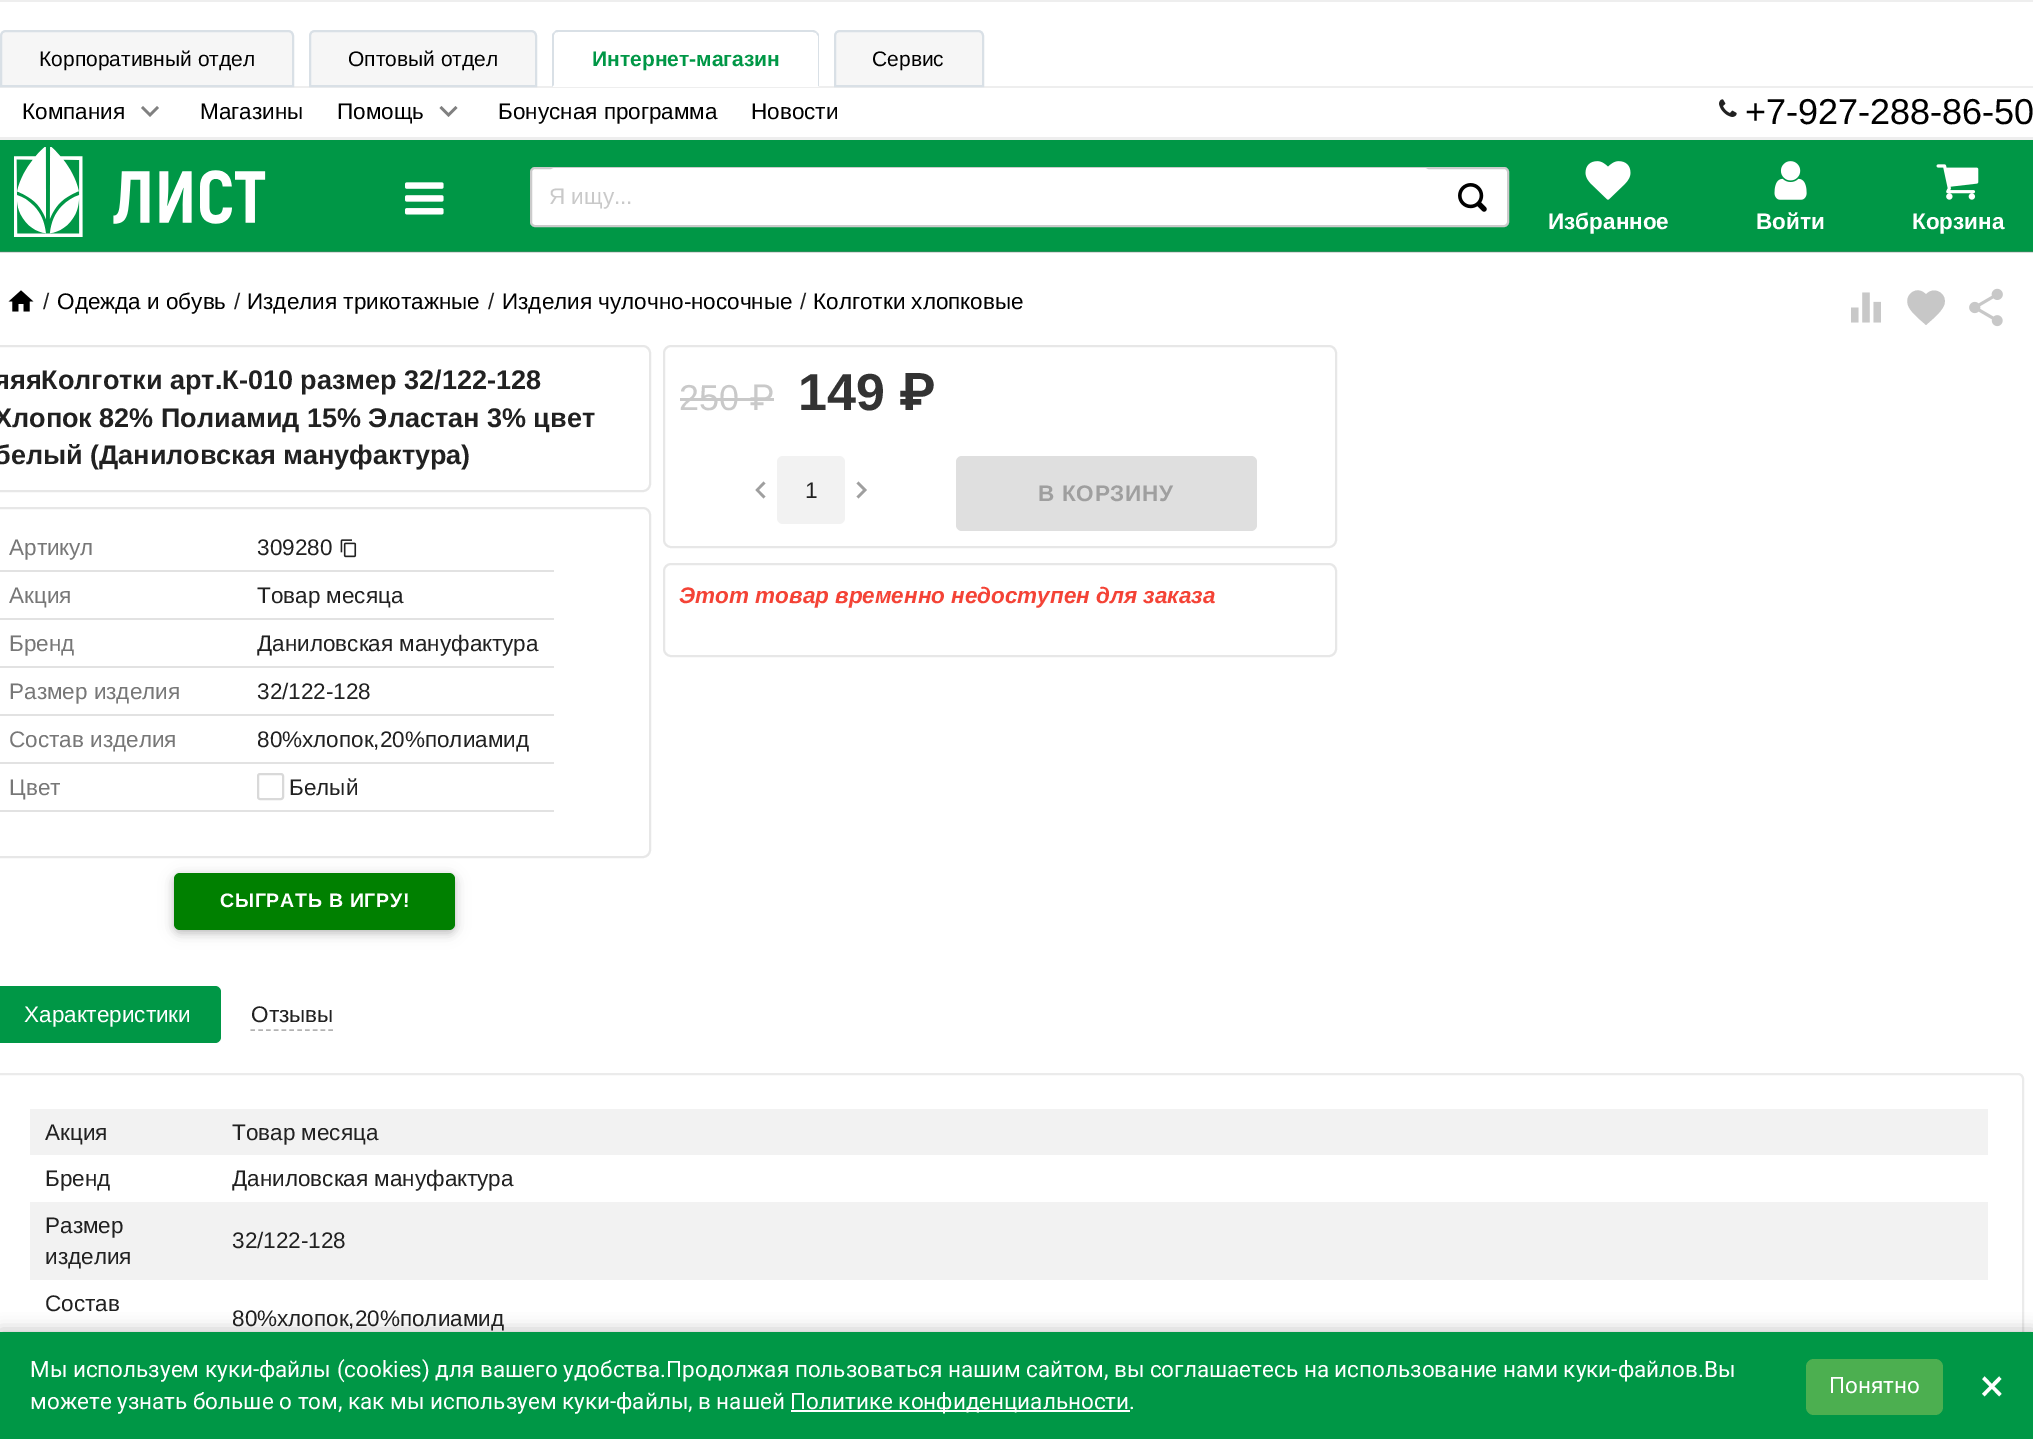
%!PS
<< /PageSize [2033 1439] /PageUsesTransparency true >> setpagedevice
/m/moveto load def
/l/rlineto load def
/c/rcurveto load def
/z/closepath load def
/f/fill load def
/s/stroke load def
/q/gsave load def
/Q_/grestore load def
/w/setlinewidth load def
/C { dup -16 bitshift 255 div exch dup -8 bitshift 255 and 255 div exch 255 and 255 div setrgbcolor } def
/F { [ exch dup neg 0 0 3 -1 roll 0 0 ] selectfont } def
/T { moveto show } def
/R { rectfill } def
/A { dup .setfillconstantalpha .setstrokeconstantalpha } def
/Q { 5 dict begin { /r /h /w /y /x } { exch def } forall
  x r add y moveto x w add y 2 copy h add r arct x w add y h add x 1 index r arct
  x y h add x y r arct x y 2 copy exch w add exch r arct closepath end } def
/S { 12 dict begin { /a /b /q /h /w /y /x } { exch def } forall gsave /was 0 def
  9 -2 -9 { dup b mul 4 div /e exch def 1 sub .425 mul 2.718 exch exp 1 add a .99 .min exch div /now exch def
    1 1 now sub 1 was sub div sub A /was now def
    w h .min e 2 mul add 0 gt { x e sub y e sub w e 2 mul add h e 2 mul add
      q e add b .6 mul add w h .min 2 div e add .min 0 .max Q fill } if } for grestore end } def
/I { 5 dict begin { /h /w /y /x /name } { exch def } forall
  gsave x y translate w h scale
  w h 8 [w 0 0 h 0 0] name (r) file false 3 colorimage grestore end } def
0 .pushpdf14devicefilter
0 1439 translate 1 -1 scale
4 setmiterlimit
16#FFFFFF C
0 0 2033 1439 R
16#DADADA C
0 252 2033 1 R
16#EEEEEE C
0 0 2033 2 R
0 86 2033 2 R
16#F6F6F6 C
6 31 m 282 0 l 3 0 5 2 5 5 c 0 50 l -292 0 l 0 -50 l 0 -3 2 -5 5 -5 c z q f Q_
16#D9E0E6 C
2 w
s
/LiberationSans-Regular 21 F
16#000000 C
(Корпоративный отдел) 39 66 T
16#F6F6F6 C
315 31 m 216 0 l 3 0 5 2 5 5 c 0 50 l -226 0 l 0 -50 l 0 -3 2 -5 5 -5 c z q f Q_
16#D9E0E6 C
s
16#000000 C
(Оптовый отдел) 348 66 T
/LiberationSans-Bold 21 F
16#009746 C
(Интернет-магазин) 592 66 T
16#D9E0E6 C
558 30 m -2 0 -3 1 -4 2 c 1 1 l 1 -1 2 -1 3 -1 c 255 0 l 3 1 l 1 -1 l -1 -1 -3 -2 -4 -2 c z f
819 87 m 0 -51 l 0 -2 -1 -3 -2 -4 c -1 1 l 2 3 l 0 50 l z f
16#FFFFFF C
819 87 m -1 -1 l -264 0 l 0 -1 l -2 2 l z f
16#D9E0E6 C
552 87 m 2 -2 l 0 -50 l 1 -2 l -1 -1 l -1 1 -2 2 -2 4 c z f
16#F6F6F6 C
840 31 m 138 0 l 3 0 5 2 5 5 c 0 50 l -148 0 l 0 -50 l 0 -3 2 -5 5 -5 c z q f Q_
16#D9E0E6 C
s
/LiberationSans-Regular 21 F
16#000000 C
(Сервис) 872 66 T
/LiberationSans-Regular 22.5 F
(Компания) 22 119 T
16#808080 C
157 106 m 2 2 l -9 9 l -9 -9 l 2 -2 l 7 7 l z f
16#000000 C
(Магазины) 200 119 T
(Помощь) 337 119 T
16#808080 C
455.5 106 m 2 2 l -9 9 l -9 -9 l 2 -2 l 7 7 l z f
16#000000 C
(Бонусная программа) 498 119 T
(Новости) 751 119 T
(1.rgb) 1719 99 18 18 I
/LiberationSans-Regular 36 F
(+7-927-288-86-50) 1745 124 T
16#EEEEEE C
0 137 2033 3 R
16#009746 C
0 140 2033 111 R
16#259057 C
0 251 2033 1 R
(2.rgb) 14 147 252 90 I
(3.rgb) 405 182 39 33 I
16#FFFFFF C
531 168 977 58 4 Q q f Q_
16#CBCBCB C
s
16#FFFFFF C
549 168 881 54 6 Q f
/LiberationSans-Regular 22.5 F
16#C9C9C9 C
(Я ищу...) 549 204 T
(4.rgb) 1458 183 29 29 I
(5.rgb) 1585 161 46 39 I
/LiberationSans-Bold 22.5 F
16#FFFFFF C
(Избранное) 1548 229 T
(6.rgb) 1774 161 33 39 I
(Войти) 1756 229 T
(7.rgb) 1936 164 43 36 I
(Корзина) 1912 229 T
(8.rgb) 8 290 26 22 I
/LiberationSans-Regular 22.5 F
16#212121 C
(/) 43 309 T
16#000000 C
(Одежда и обувь) 57 309 T
16#212121 C
(/) 234 309 T
16#000000 C
(Изделия трикотажные) 247 309 T
16#212121 C
(/) 488 309 T
16#000000 C
(Изделия чулочно-носочные) 502 309 T
16#212121 C
(/) 800 309 T
16#000000 C
(Колготки хлопковые) 813 309 T
(9.rgb) 1851 292 30 31 I
16#C7C7C7 C
1926 325 m -5.5 -5 -14.5 -12 -17.5 -18.5 c -5.5 -12 9 -22 17.5 -12 c 8 -9.5 22.5 -.5 18 11 c -3.5 7.5 -12 14 -18 19.5 c z f
(10.rgb) 1969 288 34 39 I
16#E7E7E7 C
-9 346 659 145 7 Q s
/LiberationSans-Bold 27 F
16#212121 C
(яяяКолготки арт.К-010 размер 32/122-128) -6 389 T
(Хлопок 82% Полиамид 15% Эластан 3% цвет) -6 427 T
(белый \(Даниловская мануфактура\)) -6 464 T
16#E7E7E7 C
-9 508 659 349 7 Q s
16#E2E2E2 C
0 570 554 2 R
/LiberationSans-Regular 22.5 F
16#777777 C
(Артикул) 9 555 T
16#212121 C
(309280) 257 555 T
(11.rgb) 340 539 17 19 I
16#E2E2E2 C
0 618 554 2 R
16#777777 C
(Акция) 9 603 T
16#212121 C
(Товар месяца) 257 603 T
16#E2E2E2 C
0 666 554 2 R
16#777777 C
(Бренд) 9 651 T
16#212121 C
(Даниловская мануфактура) 257 651 T
16#E2E2E2 C
0 714 554 2 R
16#777777 C
(Размер изделия) 9 699 T
16#212121 C
(32/122-128) 257 699 T
16#E2E2E2 C
0 762 554 2 R
16#777777 C
(Состав изделия) 9 747 T
16#212121 C
(80%хлопок,20%полиамид) 257 747 T
16#E2E2E2 C
0 810 554 2 R
16#777777 C
(Цвет) 9 795 T
16#D9D9D9 C
258 774 25 25 2 Q s
16#212121 C
(Белый) 289 795 T
16#000000 C
174 876 281 57 6 7.5 .12 S
174 876 281 57 6 4 .16 S
16#008000 C
174 873 281 57 6 Q f
/LiberationSans-Bold 19.5 F
16#FFFFFF C
220 907 m .75 0 (СЫГРАТЬ В ИГРУ!) ashow
16#E7E7E7 C
664 346 672 201 7 Q s
/LiberationSans-Regular 36 F
16#C9C9C9 C
(250) 679 410 T
680 398 70 3 R
/Roboto-Regular 36 F
(₽) 750 410 T
750 398 24 3 R
/LiberationSans-Bold 52 F
16#333333 C
(149) 798 410 T
/Roboto-Bold 52 F
(₽) 899 410 T
16#9F9F9F C
765.5 483.5 m -6.5 6.5 l 6.5 6.5 l -2 2 l -8 -8.5 l 8 -8.5 l z f
16#F2F2F2 C
777 456 68 68 6 Q f
/LiberationSans-Regular 22.5 F
16#212121 C
(1) 805 498 T
16#9F9F9F C
858.5 481.5 m 8.5 8.5 l -8.5 8.5 l -2 -2 l 6.5 -6.5 l -6.5 -6.5 l z f
16#DFDFDF C
956 456 301 75 6 Q f
/LiberationSans-Bold 22.5 F
16#9F9F9F C
1038 501 m .75 0 (В КОРЗИНУ) ashow
16#E7E7E7 C
664 564 672 92 7 Q s
/LiberationSans-BoldItalic 22.5 F
16#F44336 C
(Этот товар временно недоступен для заказа) 679 603 T
16#009746 C
-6 986 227 57 6 Q f
/LiberationSans-Regular 22.5 F
16#FFFFFF C
(Характеристики) 24 1022 T
16#212121 C
(Отзывы) 251 1022 T
16#B2B2B2 C
1.5 w
[4.5 3.3] 0 setdash
250.5 1030 m 82.5 0 l s
16#EBEBEB C
2 w
[] 0 setdash
-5 1074 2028 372 5 Q s
16#F2F2F2 C
30 1109 1958 46 R
16#212121 C
(Акция) 45 1140 T
(Товар месяца) 232 1140 T
(Бренд) 45 1186 T
(Даниловская мануфактура) 232 1186 T
16#F2F2F2 C
30 1202 1958 78 R
16#212121 C
(Размер) 45 1233 T
(изделия) 45 1264 T
(32/122-128) 232 1248 T
(Состав) 45 1311 T
(80%хлопок,20%полиамид) 232 1326 T
16#000000 C
0 1329 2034 108 0 7.5 .2 S
16#009746 C
0 1332 2033 107 R
/Roboto-Regular 22.5 F
16#FFFFFF C
(Мы используем куки-файлы \(cookies\) для вашего удобства.Продолжая пользоваться нашим сайтом, вы соглашаетесь на использование нами куки-файлов.Вы) 30 1377 T
(можете узнать больше о том, как мы используем куки-файлы, в нашей) 30 1409 T
791 1410 339 2 R
(Политике конфиденциальности.) 790 1409 T
16#4CAF50 C
1806 1359 137 56 8 Q f
16#FFFFFF C
(Понятно) 1829 1393 T
/Roboto-Regular 45 F
(×) 1980 1401 T
.poppdf14devicefilter showpage
